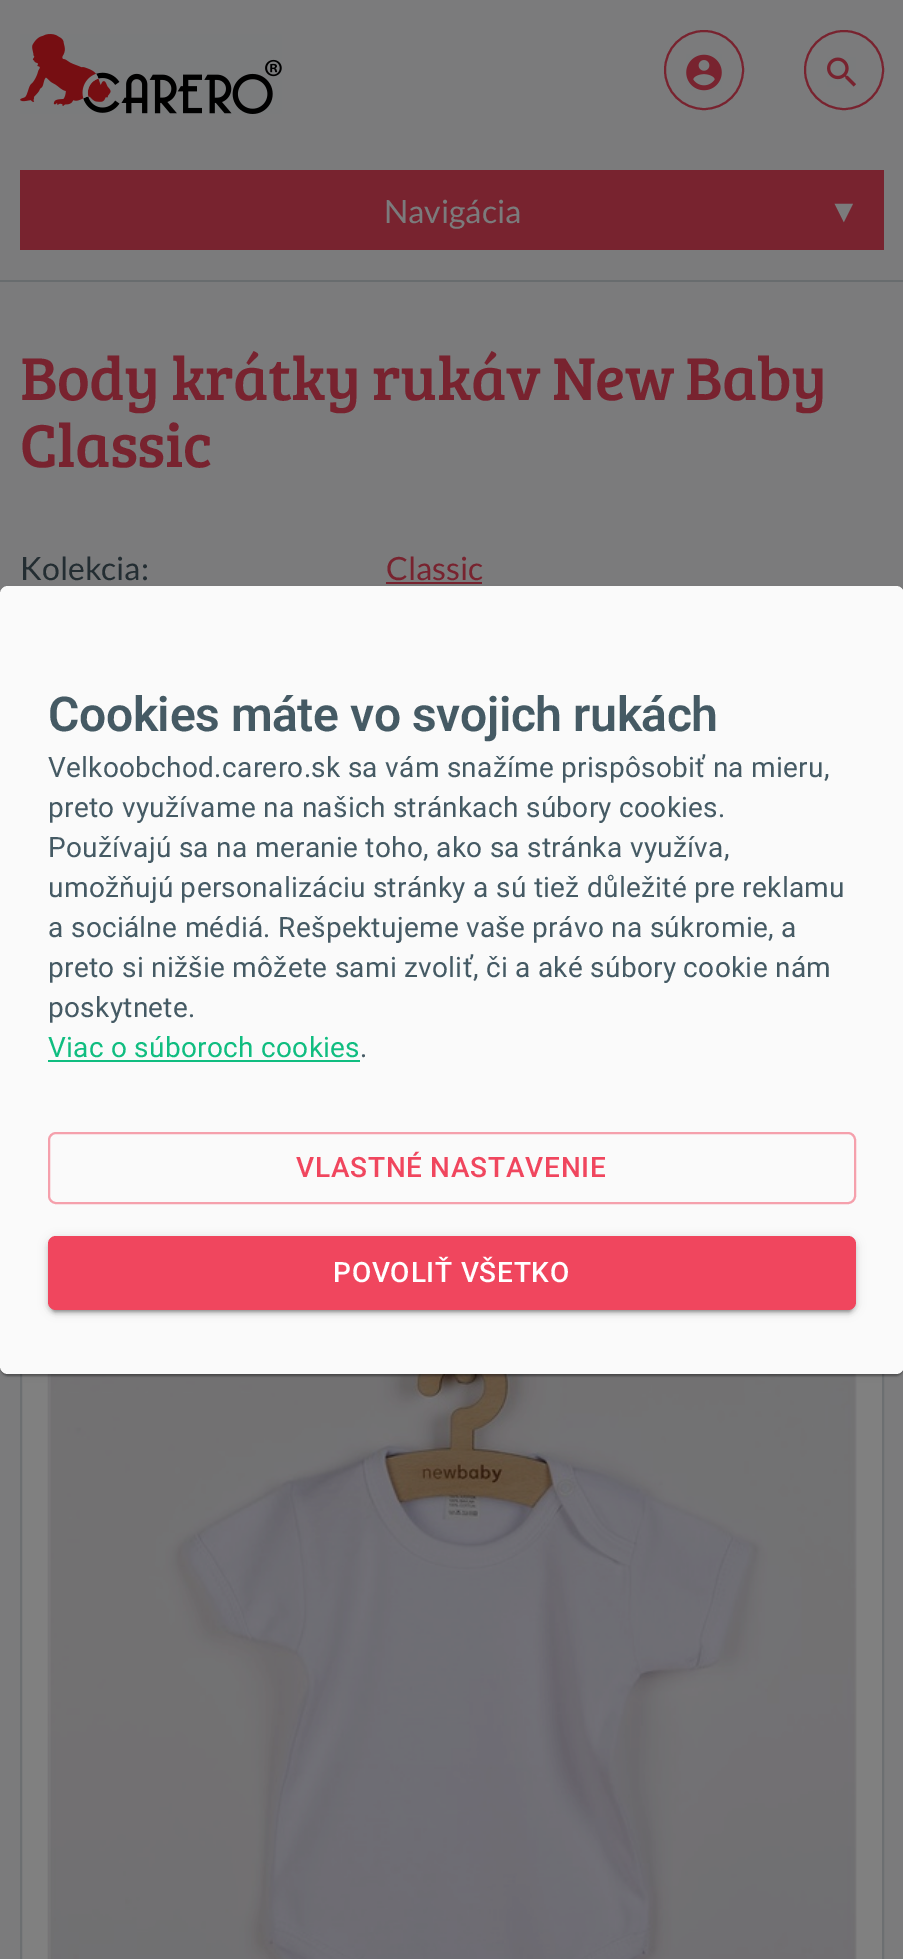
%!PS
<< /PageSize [903 1959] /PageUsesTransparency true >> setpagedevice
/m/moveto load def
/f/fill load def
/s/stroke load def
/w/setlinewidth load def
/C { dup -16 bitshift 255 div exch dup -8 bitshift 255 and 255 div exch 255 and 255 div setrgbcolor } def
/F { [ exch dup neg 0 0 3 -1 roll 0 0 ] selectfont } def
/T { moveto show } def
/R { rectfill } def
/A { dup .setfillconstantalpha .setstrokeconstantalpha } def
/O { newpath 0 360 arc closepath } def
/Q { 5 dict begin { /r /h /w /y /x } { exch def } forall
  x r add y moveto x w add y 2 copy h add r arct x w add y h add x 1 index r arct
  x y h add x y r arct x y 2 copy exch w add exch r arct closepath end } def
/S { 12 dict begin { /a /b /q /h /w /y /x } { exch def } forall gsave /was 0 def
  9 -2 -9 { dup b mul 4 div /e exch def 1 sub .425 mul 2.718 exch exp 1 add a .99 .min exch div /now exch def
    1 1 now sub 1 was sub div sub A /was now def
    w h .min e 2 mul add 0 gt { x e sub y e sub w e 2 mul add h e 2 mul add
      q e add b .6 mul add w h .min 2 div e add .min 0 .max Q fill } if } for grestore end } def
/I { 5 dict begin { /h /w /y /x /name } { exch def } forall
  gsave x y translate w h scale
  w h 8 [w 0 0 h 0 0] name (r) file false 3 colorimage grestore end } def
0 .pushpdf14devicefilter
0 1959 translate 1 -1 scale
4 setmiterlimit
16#7B7B7C C
0 0 903 1959 R
16#686C6E C
0 280 903 2 R
(1.rgb) 20 34 262 80 I
16#78232F C
2 w
704 70 39 O s
(2.rgb) 686 54 36 37 I
844 70 39 O s
(3.rgb) 827 57 29 30 I
20 170 864 80 R
/Lato-Regular 32 F
16#7B7B7C C
(Navigácia) 384 223 T
/LiberationSans-Regular 32 F
(▼) 828 222 T
/BreeSerif-Regular 62.4 F
16#78232F C
20 400 m -.6 0 (Body krátky rukáv New Baby) ashow
20 467 m -.6 0 (Classic) ashow
/Lato-Regular 32 F
16#232D32 C
(Kolekcia:) 20 580 T
16#78232F C
(Classic) 386 580 T
386 582 96 2 R
16#808080 C
22 1374 860 585 R
16#6C6F71 C
21 1289 862 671 rectstroke
(4.rgb) 47 1374 810 585 I
16#000000 C
0 588 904 788 8 3 .12 S
0 588 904 788 8 1 .14 S
2 592 900 784 6 1 .2 S
16#FAFAFA C
0 586 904 788 8 Q f
/Roboto-SemiBold 48 F
16#455A64 C
48 731 m -.4 0 (Cookies máte vo svojich rukách) ashow
/Roboto-Regular 28 F
48 777 m .3 0 (Velkoobchod.carero.sk sa vám snažíme prispôsobiť na mieru,) ashow
48 817 m .3 0 (preto využívame na našich stránkach súbory cookies.) ashow
48 857 m .3 0 (Používajú sa na meranie toho, ako sa stránka využíva,) ashow
48 897 m .3 0 (umožňujú personalizáciu stránky a sú tiež důležité pre reklamu) ashow
48 937 m .3 0 (a sociálne médiá. Rešpektujeme vaše právo na súkromie, a) ashow
48 977 m .3 0 (preto si nižšie môžete sami zvoliť, či a aké súbory cookie nám) ashow
48 1017 m .3 0 (poskytnete.) ashow
16#10BD80 C
48 1057 m .3 0 (Viac o súboroch cookies) ashow
48 1060 312 2 R
16#455A64 C
360 1057 m .3 0 (.) ashow
16#F5A0AC C
49 1133 806 70 7 Q s
/Roboto-Medium 28 F
16#F0465E C
296 1177 m .75 0 (VLASTNÉ NASTAVENIE) ashow
16#000000 C
48 1238 808 74 8 5 .12 S
48 1240 808 74 8 2 .14 S
52 1246 800 66 4 1 .2 S
16#F0465E C
48 1236 808 74 8 Q f
16#FFFFFF C
333 1282 m .75 0 (POVOLIŤ VŠETKO) ashow
.poppdf14devicefilter showpage
